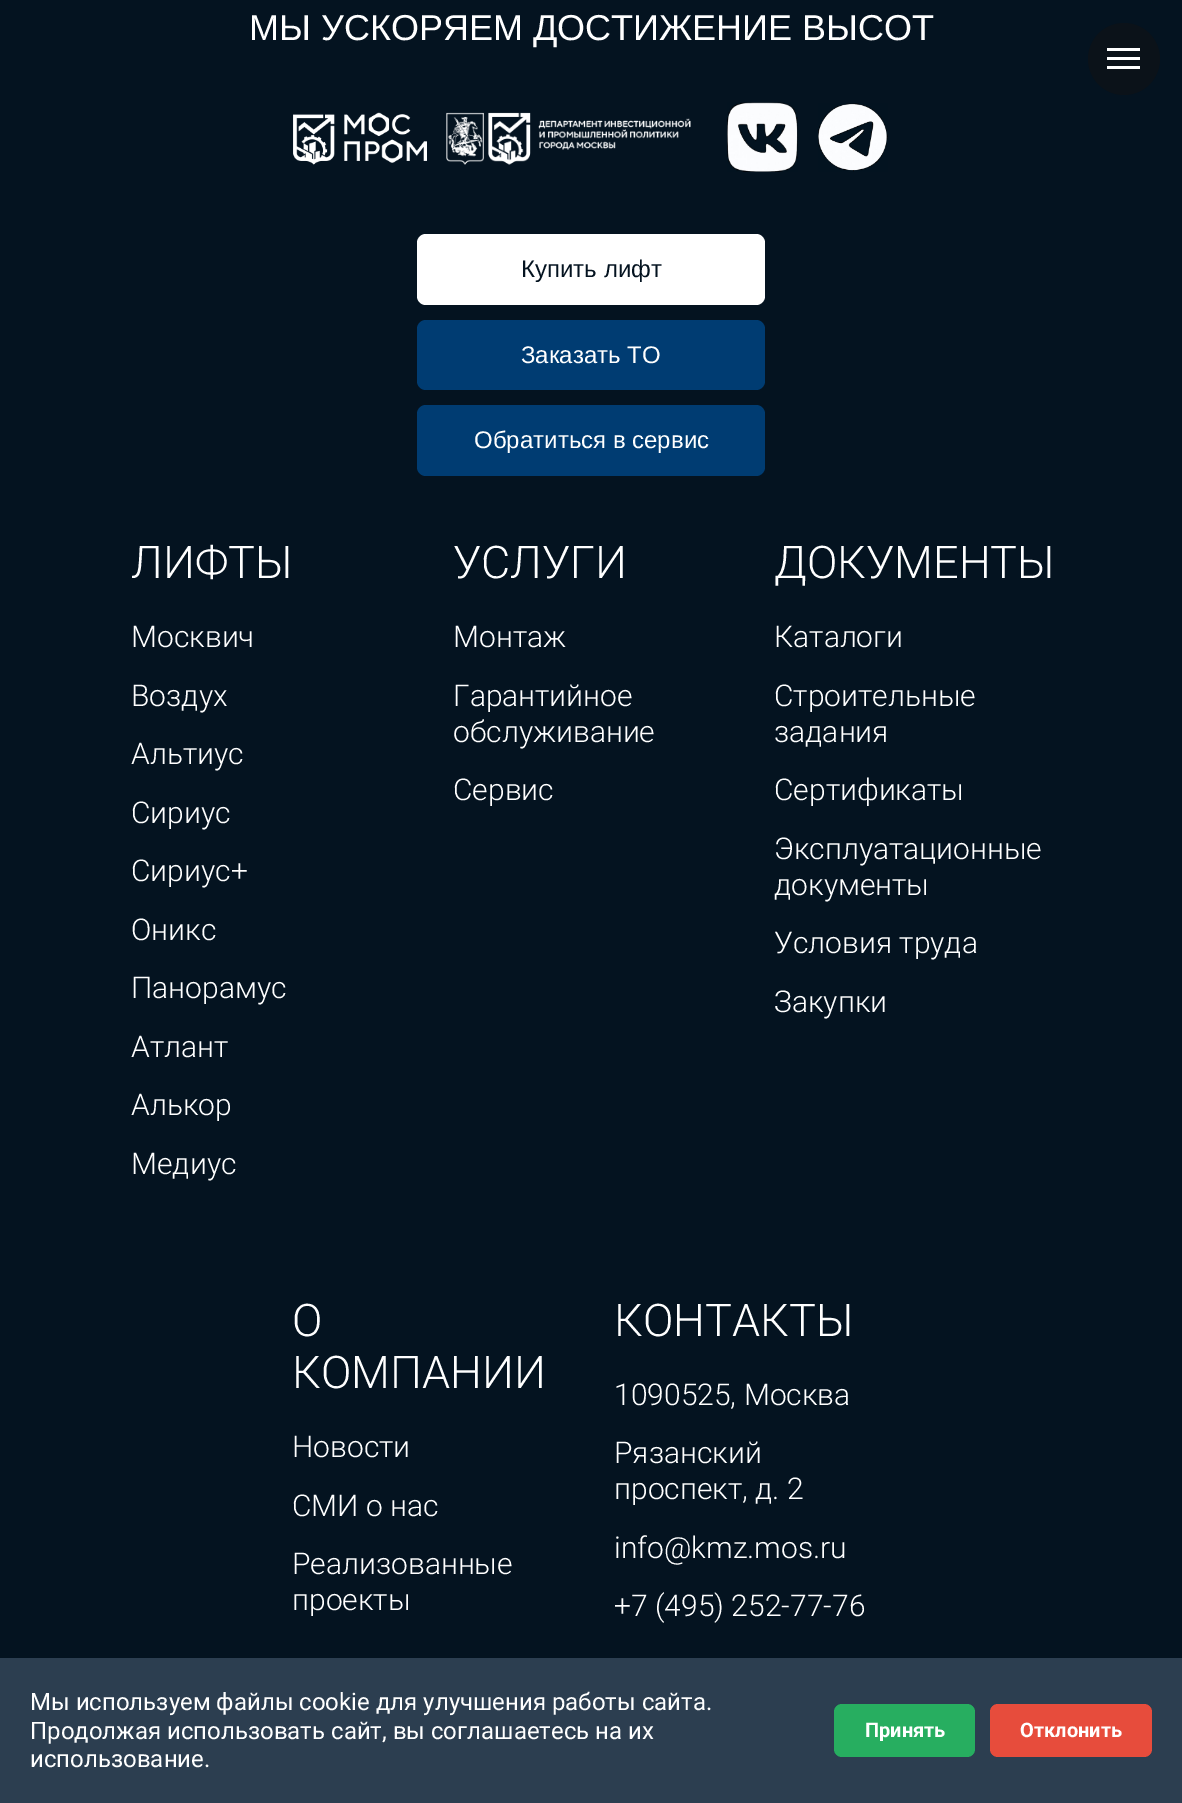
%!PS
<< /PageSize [1182 1803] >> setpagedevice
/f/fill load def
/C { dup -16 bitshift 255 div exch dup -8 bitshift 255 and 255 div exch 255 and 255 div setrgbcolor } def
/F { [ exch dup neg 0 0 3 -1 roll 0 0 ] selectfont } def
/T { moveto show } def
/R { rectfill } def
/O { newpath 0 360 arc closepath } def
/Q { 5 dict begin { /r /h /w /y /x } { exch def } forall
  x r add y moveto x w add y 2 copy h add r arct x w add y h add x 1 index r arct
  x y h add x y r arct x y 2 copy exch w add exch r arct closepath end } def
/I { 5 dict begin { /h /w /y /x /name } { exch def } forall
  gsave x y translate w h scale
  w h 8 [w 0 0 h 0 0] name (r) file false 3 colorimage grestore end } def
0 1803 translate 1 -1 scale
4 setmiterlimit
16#041320 C
0 0 1182 1803 R
/LiberationSans-Regular 36 F
16#FFFFFF C
(МЫ УСКОРЯЕМ ДОСТИЖЕНИЕ ВЫСОТ) 249 40 T
(1.rgb) 293 112 134 53 I
(2.rgb) 446 112 245 53 I
(3.rgb) 727 102 71 70 I
(4.rgb) 818 103 70 69 I
417 234 348 71 9 Q f
/LiberationSans-Regular 24 F
16#041320 C
(Купить лифт) 521 277 T
16#003C72 C
417 320 348 70 9 Q f
16#FFFFFF C
(Заказать ТО) 521 363 T
16#003C72 C
417 405 348 71 9 Q f
16#FFFFFF C
(Обратиться в сервис) 474 448 T
/Roboto-Light 45 F
(ЛИФТЫ) 131 578 T
/Roboto-Light 30 F
(Москвич) 131 647 T
(Воздух) 131 706 T
(Альтиус) 131 764 T
(Сириус) 131 823 T
(Сириус+) 131 881 T
(Оникс) 131 940 T
(Панорамус) 131 998 T
(Атлант) 131 1057 T
(Алькор) 131 1115 T
(Медиус) 131 1174 T
/Roboto-Light 45 F
(УСЛУГИ) 453 578 T
/Roboto-Light 30 F
(Монтаж) 453 647 T
(Гарантийное) 453 706 T
(обслуживание) 453 742 T
(Сервис) 453 800 T
/Roboto-Light 45 F
(ДОКУМЕНТЫ) 774 578 T
/Roboto-Light 30 F
(Каталоги) 774 647 T
(Строительные) 774 706 T
(задания) 774 742 T
(Сертификаты) 774 800 T
(Эксплуатационные) 774 859 T
(документы) 774 895 T
(Условия труда) 774 953 T
(Закупки) 774 1012 T
/Roboto-Light 45 F
(О) 292 1336 T
(КОМПАНИИ) 292 1388 T
/Roboto-Light 30 F
(Новости) 292 1457 T
(СМИ о нас) 292 1516 T
(Реализованные) 292 1574 T
(проекты) 292 1610 T
/Roboto-Light 45 F
(КОНТАКТЫ) 614 1336 T
/Roboto-Light 30 F
(1090525, Москва) 614 1405 T
(Рязанский) 614 1463 T
(проспект, д. 2) 614 1499 T
(info@kmz.mos.ru) 614 1558 T
(+7 \(495\) 252-77-76) 614 1616 T
16#0B1219 C
1124 59 36 O f
16#FFFFFF C
1107 48 33 3 R
1107 57 33 3 R
1107 66 33 3 R
16#2C3E50 C
0 1658 1182 145 R
/Roboto-Regular 24 F
16#FFFFFF C
(Мы используем файлы cookie для улучшения работы сайта.) 30 1710 T
(Продолжая использовать сайт, вы соглашаетесь на их) 30 1739 T
(использование.) 30 1767 T
16#27AE60 C
834 1704 141 53 8 Q f
/Roboto-Bold 20 F
16#FFFFFF C
(Принять) 865 1737 T
16#E74C3C C
990 1704 162 53 8 Q f
16#FFFFFF C
(Отклонить) 1020 1737 T
showpage
